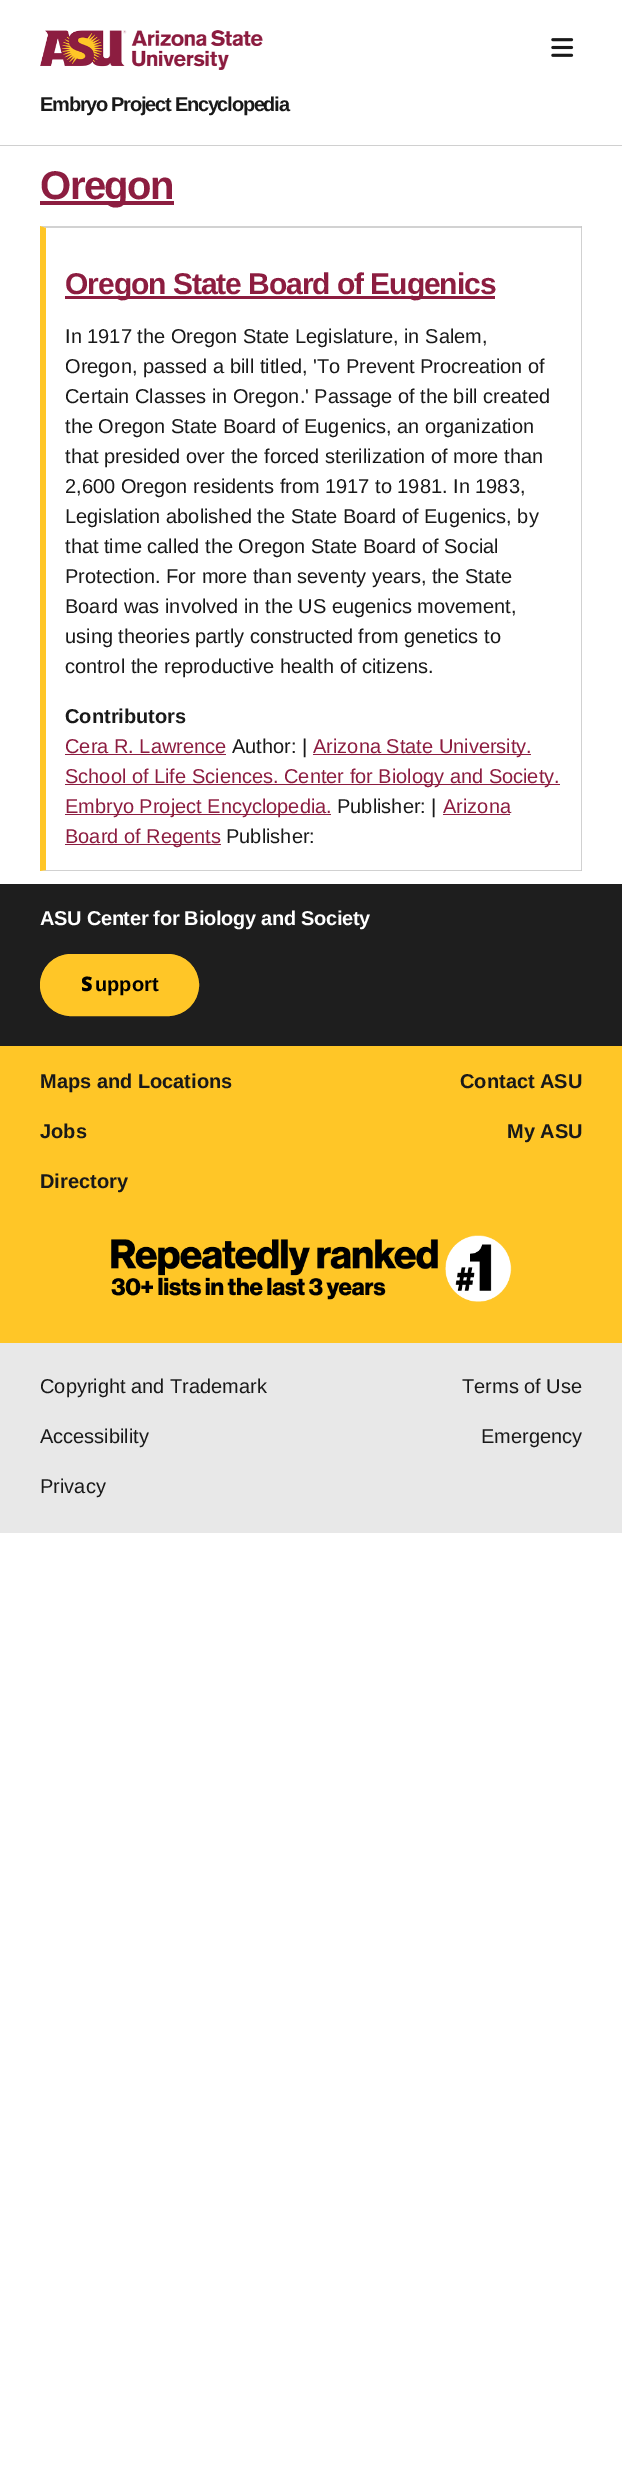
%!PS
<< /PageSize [622 2490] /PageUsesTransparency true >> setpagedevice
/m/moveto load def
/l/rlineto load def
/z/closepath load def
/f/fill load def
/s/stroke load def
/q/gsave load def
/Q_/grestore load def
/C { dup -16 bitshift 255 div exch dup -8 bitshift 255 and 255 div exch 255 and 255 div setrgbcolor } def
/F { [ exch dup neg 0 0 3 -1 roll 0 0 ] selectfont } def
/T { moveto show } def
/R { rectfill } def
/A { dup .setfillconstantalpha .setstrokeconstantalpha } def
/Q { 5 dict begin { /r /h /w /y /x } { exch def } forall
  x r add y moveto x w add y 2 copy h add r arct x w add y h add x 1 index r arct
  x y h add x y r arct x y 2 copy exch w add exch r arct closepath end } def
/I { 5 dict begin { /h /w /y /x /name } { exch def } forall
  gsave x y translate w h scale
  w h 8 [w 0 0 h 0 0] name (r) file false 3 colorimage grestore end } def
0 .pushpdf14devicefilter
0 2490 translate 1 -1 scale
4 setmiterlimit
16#FFFFFF C
0 0 622 2490 R
16#D0D0D0 C
0 145 622 1 R
(1.rgb) 40 30 223 40 I
(2.rgb) 551 38 23 19 I
/LiberationSans-Bold 20 F
16#191919 C
40 111 m -1.25 0 (Embryo Project Encyclopedia) ashow
16#8C1D40 C
40 201 134 4 R
/LiberationSans-Bold 40 F
40 199 m -1.5 0 (Oregon) ashow
16#D2D2D2 C
40 226 m 542 0 l -1 2 l -535 0 l z f
0.18 A
16#000000 C
582 226 m 0 645 l -1 -1 l 0 -642 l z f
582 871 m -542 0 l 6 -1 l 535 0 l z f
1 A
16#FFC627 C
40 871 m 0 -645 l 6 2 l 0 642 l z f
16#8C1D40 C
65 296 430 3 R
/LiberationSans-Bold 30 F
65 294 m -1.05 0 (Oregon State Board of Eugenics) ashow
/LiberationSans-Regular 20 F
16#191919 C
(In 1917 the Oregon State Legislature, in Salem,) 65 343 T
(Oregon, passed a bill titled, 'To Prevent Procreation of) 65 373 T
(Certain Classes in Oregon.' Passage of the bill created) 65 403 T
(the Oregon State Board of Eugenics, an organization) 65 433 T
(that presided over the forced sterilization of more than) 65 463 T
(2,600 Oregon residents from 1917 to 1981. In 1983,) 65 493 T
(Legislation abolished the State Board of Eugenics, by) 65 523 T
(that time called the Oregon State Board of Social) 65 553 T
(Protection. For more than seventy years, the State) 65 583 T
(Board was involved in the US eugenics movement,) 65 613 T
(using theories partly constructed from genetics to) 65 643 T
(control the reproductive health of citizens.) 65 673 T
/LiberationSans-Bold 20 F
(Contributors) 65 723 T
/LiberationSans-Regular 20 F
16#8C1D40 C
(Cera R. Lawrence) 65 753 T
65 754 161 1 R
16#191919 C
(Author: |) 232 753 T
16#8C1D40 C
313 754 218 1 R
(Arizona State University.) 313 753 T
65 784 495 1 R
(School of Life Sciences. Center for Biology and Society.) 65 783 T
65 814 266 1 R
(Embryo Project Encyclopedia.) 65 813 T
16#191919 C
(Publisher: |) 337 813 T
16#8C1D40 C
(Arizona) 443 813 T
443 814 67 1 R
65 844 156 1 R
(Board of Regents) 65 843 T
16#191919 C
(Publisher:) 226 843 T
16#1E1E1E C
0 884 622 162 R
/LiberationSans-Bold 20 F
16#FFFFFF C
40 925 m -.3 0 (ASU Center for Biology and Society) ashow
16#FFC627 C
40.5 954.5 158 61 30.5 Q q f Q_
s
/NotoSans-Black 20 F
16#000000 C
(S) 81 991 T
/LiberationSans-Bold 20 F
(upport) 95 991 T
16#FFC627 C
0 1046 622 297 R
16#191919 C
(Maps and Locations) 40 1088 T
(Contact ASU) 460 1088 T
(Jobs) 40 1138 T
(My ASU) 507 1138 T
(Directory) 40 1188 T
(3.rgb) 111 1235 401 67 I
16#E8E8E8 C
0 1343 622 190 R
/LiberationSans-Regular 20 F
16#191919 C
(Copyright and Trademark) 40 1393 T
(Terms of Use) 462 1393 T
(Accessibility) 40 1443 T
(Emergency) 481 1443 T
(Privacy) 40 1493 T
.poppdf14devicefilter showpage
